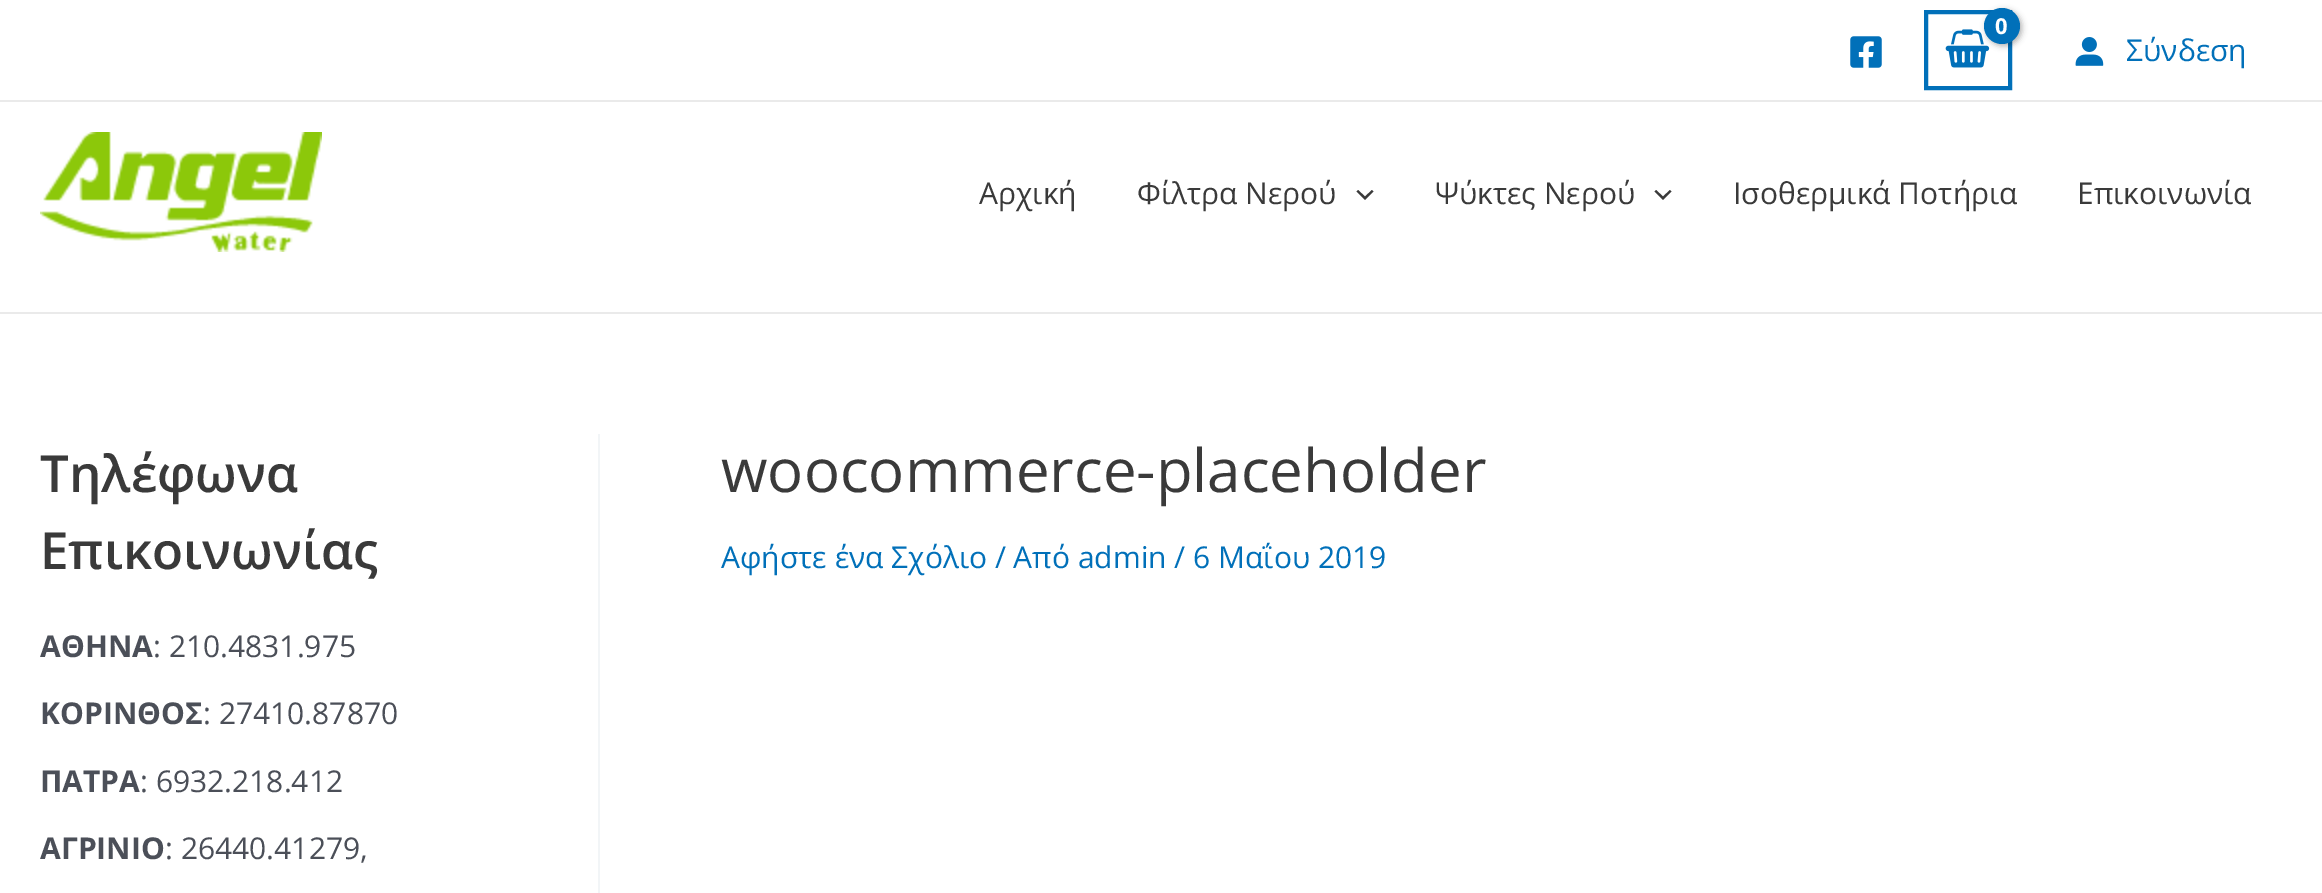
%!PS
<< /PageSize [2322 893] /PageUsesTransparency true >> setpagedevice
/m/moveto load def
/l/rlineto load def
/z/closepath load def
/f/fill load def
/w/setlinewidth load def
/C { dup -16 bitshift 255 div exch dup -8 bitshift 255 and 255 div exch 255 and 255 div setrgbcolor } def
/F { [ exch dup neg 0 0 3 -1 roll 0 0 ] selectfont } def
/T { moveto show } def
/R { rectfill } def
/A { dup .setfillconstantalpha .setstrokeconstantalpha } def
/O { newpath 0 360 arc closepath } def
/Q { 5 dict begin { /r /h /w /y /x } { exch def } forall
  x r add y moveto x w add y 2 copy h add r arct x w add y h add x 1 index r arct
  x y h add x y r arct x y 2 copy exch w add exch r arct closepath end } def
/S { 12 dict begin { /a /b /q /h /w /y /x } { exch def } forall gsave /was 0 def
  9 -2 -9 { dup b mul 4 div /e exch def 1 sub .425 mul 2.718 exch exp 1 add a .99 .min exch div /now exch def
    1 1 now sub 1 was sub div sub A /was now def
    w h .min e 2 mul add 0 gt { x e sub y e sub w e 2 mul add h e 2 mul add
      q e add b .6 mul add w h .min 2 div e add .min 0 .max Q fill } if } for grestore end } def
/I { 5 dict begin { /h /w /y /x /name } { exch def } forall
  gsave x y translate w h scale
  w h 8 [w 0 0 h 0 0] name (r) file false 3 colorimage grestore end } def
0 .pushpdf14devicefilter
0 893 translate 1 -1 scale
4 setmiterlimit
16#FFFFFF C
0 0 2322 893 R
16#EAEAEA C
0 100 2322 2 R
16#0170B9 C
4 w
1926 12 84 76 rectstroke
(1.rgb) 1945 29 45 39 I
16#000000 C
1986 10 36 36 18 3 .3 S
16#0170B9 C
2002 26 18 O f
/OpenSans-Bold 22 F
16#FFFFFF C
1995 34 m -1 0 (0) ashow
(2.rgb) 1850 36 32 32 I
(3.rgb) 2075 37 29 29 I
/OpenSans-Regular 30 F
16#0170B9 C
(Σύνδεση) 2126 61 T
16#EAEAEA C
0 312 2322 2 R
(4.rgb) 40 132 282 120 I
16#3A3A3A C
(Αρχική) 979 204 T
(Φίλτρα Νερού) 1137 204 T
1356.5 191.5 m 8.5 8.5 l 8.5 -8.5 l -1.5 -1.5 l -7 6.5 l -7 -6.5 l z f
(Ψύκτες Νερού) 1435 204 T
1654.5 191.5 m 8.5 8.5 l 8.5 -8.5 l -1.5 -1.5 l -7 6.5 l -7 -6.5 l z f
(Ισοθερμικά Ποτήρια) 1733 204 T
(Επικοινωνία) 2077 204 T
16#F2F5F7 C
598 434 2 459 R
/OpenSans-SemiBold 51 F
16#3A3A3A C
(Τηλέφωνα) 40 492 T
(Επικοινωνίας) 40 569 T
/OpenSans-Bold 30 F
16#4B4F58 C
(ΑΘΗΝΑ) 40 657 T
/OpenSans-Regular 30 F
(: 210.4831.975) 153 657 T
/OpenSans-Bold 30 F
(ΚΟΡΙΝΘΟΣ) 40 724 T
/OpenSans-Regular 30 F
(: 27410.87870) 203 724 T
/OpenSans-Bold 30 F
(ΠΑΤΡΑ) 40 792 T
/OpenSans-Regular 30 F
(: 6932.218.412) 140 792 T
/OpenSans-Bold 30 F
(ΑΓΡΙΝΙΟ) 40 859 T
/OpenSans-Regular 30 F
(: 26440.41279,) 165 859 T
/OpenSans-Regular 60 F
16#3A3A3A C
(woocommerce-placeholder) 721 492 T
/OpenSans-Regular 30 F
16#0170B9 C
(Αφήστε ένα Σχόλιο / Από admin / 6 Μαΐου 2019) 721 568 T
.poppdf14devicefilter showpage
